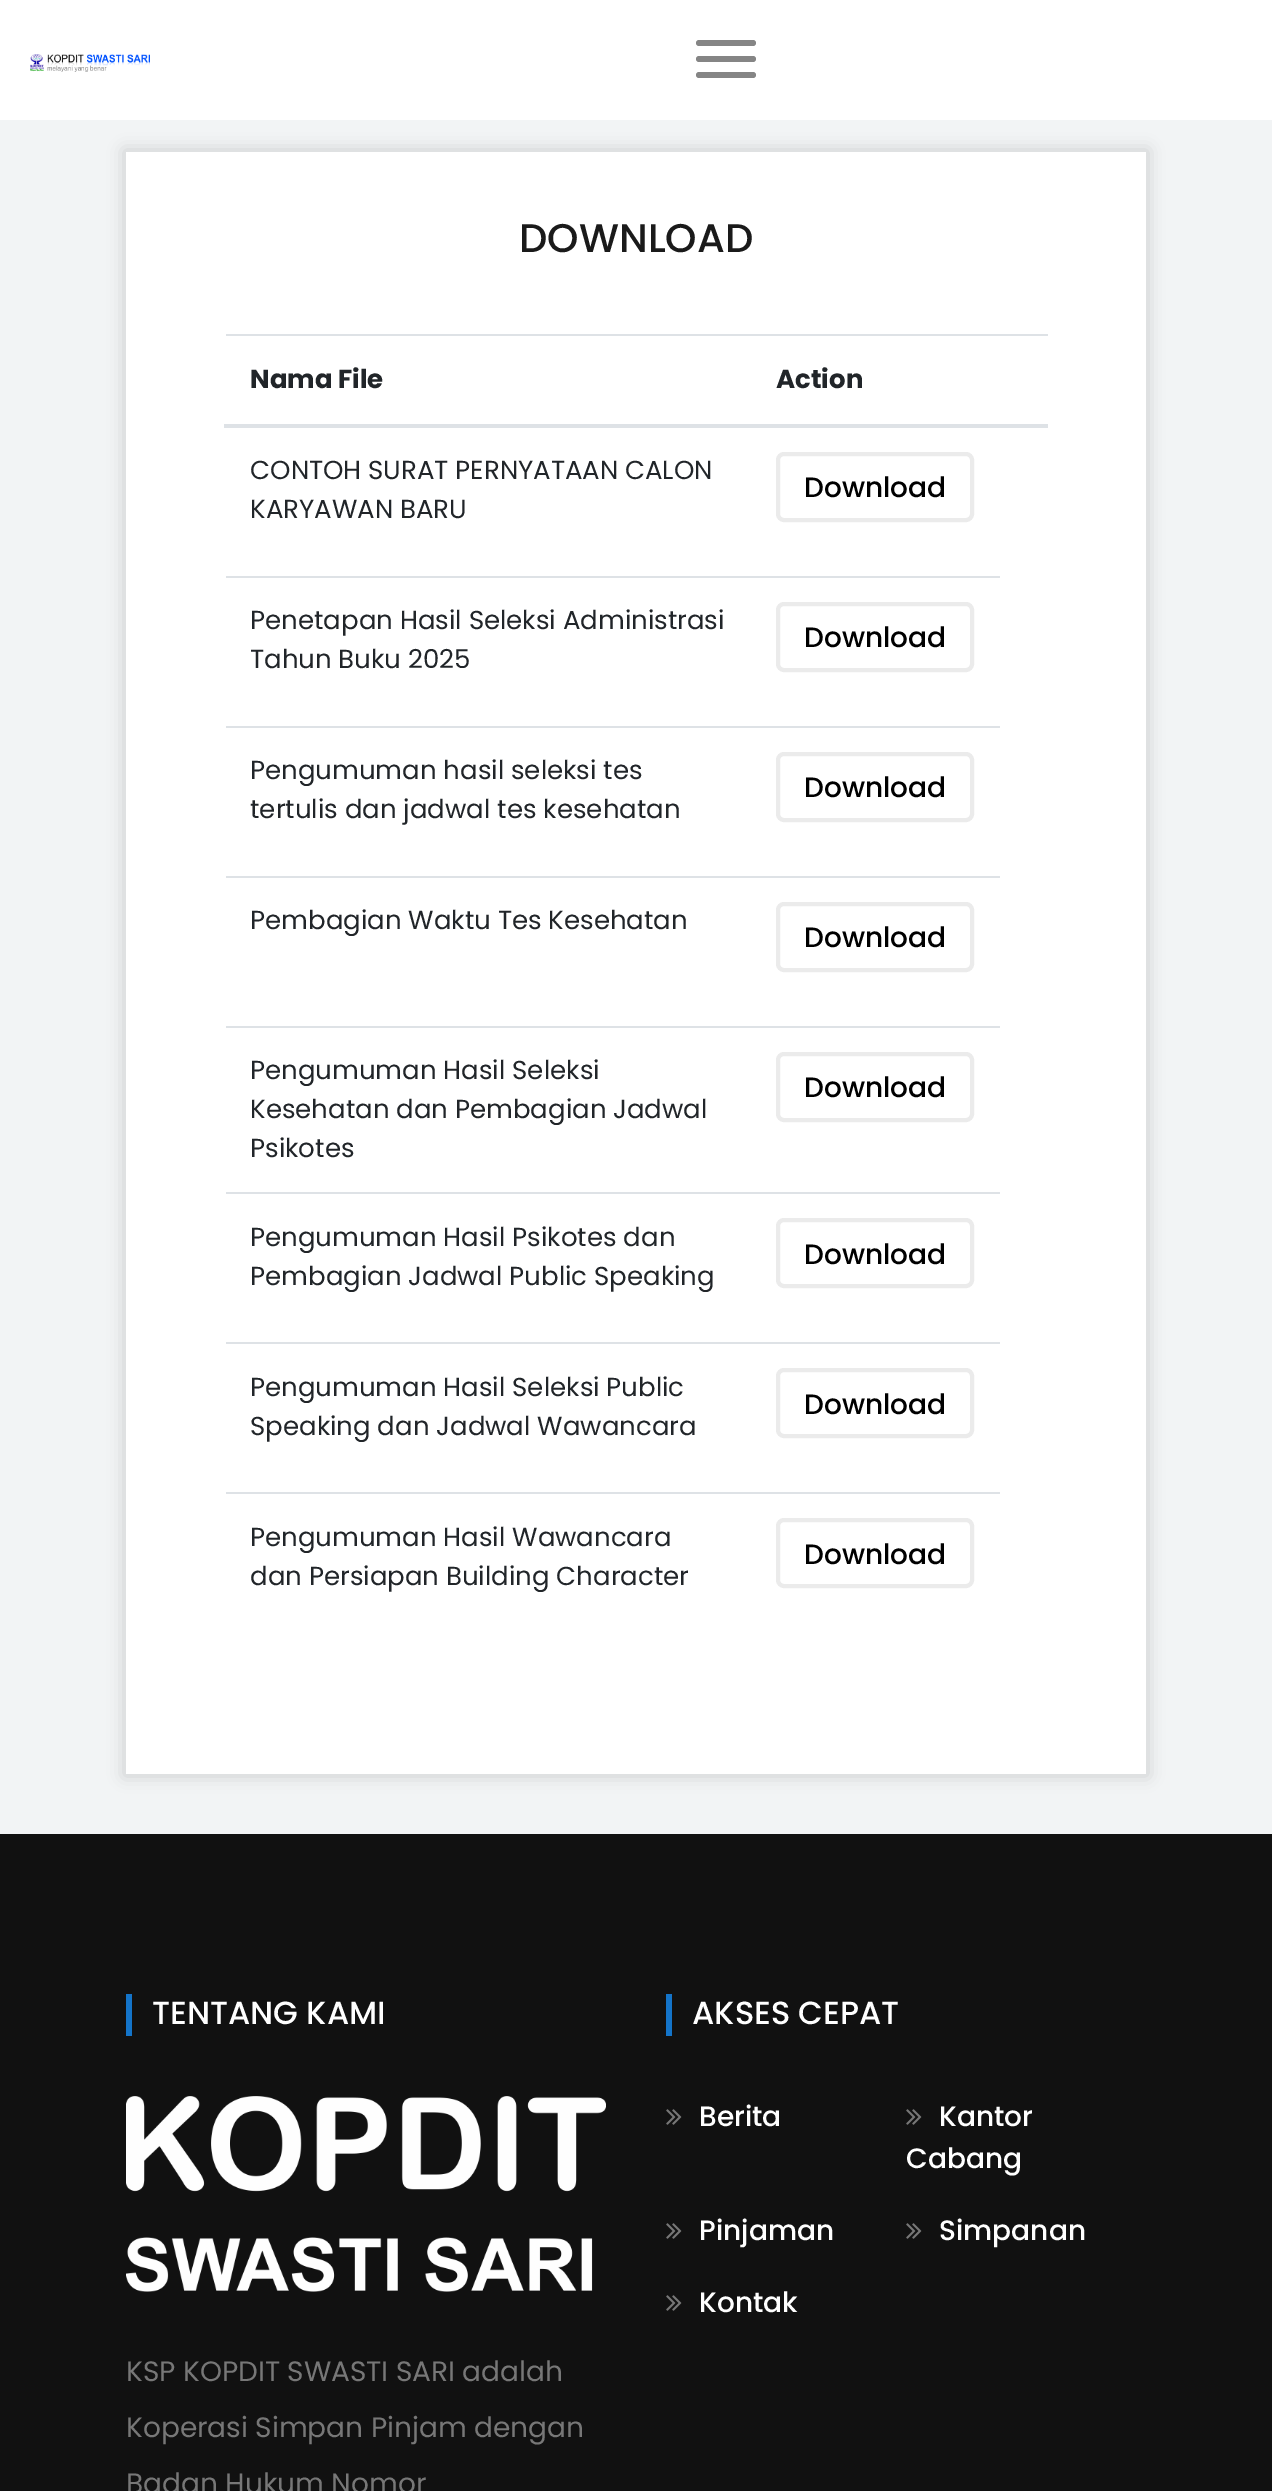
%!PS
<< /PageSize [1272 2491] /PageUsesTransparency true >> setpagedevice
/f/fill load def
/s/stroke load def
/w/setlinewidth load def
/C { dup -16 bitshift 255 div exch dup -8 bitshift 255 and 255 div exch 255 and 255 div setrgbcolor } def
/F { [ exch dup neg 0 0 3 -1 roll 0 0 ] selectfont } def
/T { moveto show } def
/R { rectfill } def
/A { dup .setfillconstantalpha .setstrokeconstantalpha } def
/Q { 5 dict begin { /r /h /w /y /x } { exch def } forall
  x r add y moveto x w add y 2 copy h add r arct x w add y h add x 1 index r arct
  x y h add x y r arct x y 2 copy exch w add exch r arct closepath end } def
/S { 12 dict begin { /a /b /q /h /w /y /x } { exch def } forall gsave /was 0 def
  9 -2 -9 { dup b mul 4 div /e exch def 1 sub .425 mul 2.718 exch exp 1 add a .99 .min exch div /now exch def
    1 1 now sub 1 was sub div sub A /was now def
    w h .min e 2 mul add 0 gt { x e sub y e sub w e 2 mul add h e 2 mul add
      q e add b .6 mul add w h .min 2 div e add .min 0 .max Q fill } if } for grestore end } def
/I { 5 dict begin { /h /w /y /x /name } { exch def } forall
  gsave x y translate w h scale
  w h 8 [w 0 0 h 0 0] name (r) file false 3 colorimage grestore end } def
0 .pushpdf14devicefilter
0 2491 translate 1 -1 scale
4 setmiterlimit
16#F2F4F5 C
0 0 1272 2491 R
16#FFFFFF C
0 0 1272 120 R
(1.rgb) 30 54 120 18 I
16#858585 C
696 40 60 6 3 Q f
696 56 60 6 3 Q f
696 72 60 6 3 Q f
16#000000 C
124 150 1024 1626 0 8 .15 S
16#FFFFFF C
126 152 1020 1622 R
/Poppins-Medium 40 F
16#1A1A1A C
(DOWNLOAD) 519 252 T
16#DEE2E6 C
226 334 822 2 R
224 424 824 4 R
/Poppins-Bold 26 F
16#212529 C
(Nama File) 250 388 T
(Action) 776 388 T
/Poppins-Regular 26 F
(CONTOH SURAT PERNYATAAN CALON) 250 479 T
(KARYAWAN BARU) 250 518 T
16#EBEBEB C
4 w
778 454 194 66 6 Q s
/Poppins-Medium 28 F
16#000000 C
(Download) 804 497 T
/Poppins-Regular 26 F
16#212529 C
(Penetapan Hasil Seleksi Administrasi) 250 629 T
(Tahun Buku 2025) 250 668 T
16#DEE2E6 C
226 576 774 2 R
16#EBEBEB C
778 604 194 66 6 Q s
/Poppins-Medium 28 F
16#000000 C
(Download) 804 647 T
/Poppins-Regular 26 F
16#212529 C
(Pengumuman hasil seleksi tes) 250 779 T
(tertulis dan jadwal tes kesehatan) 250 818 T
16#DEE2E6 C
226 726 774 2 R
16#EBEBEB C
778 754 194 66 6 Q s
/Poppins-Medium 28 F
16#000000 C
(Download) 804 797 T
/Poppins-Regular 26 F
16#212529 C
(Pembagian Waktu Tes Kesehatan) 250 929 T
16#DEE2E6 C
226 876 774 2 R
16#EBEBEB C
778 904 194 66 6 Q s
/Poppins-Medium 28 F
16#000000 C
(Download) 804 947 T
/Poppins-Regular 26 F
16#212529 C
(Pengumuman Hasil Seleksi) 250 1079 T
(Kesehatan dan Pembagian Jadwal) 250 1118 T
(Psikotes) 250 1157 T
16#DEE2E6 C
226 1026 774 2 R
16#EBEBEB C
778 1054 194 66 6 Q s
/Poppins-Medium 28 F
16#000000 C
(Download) 804 1097 T
/Poppins-Regular 26 F
16#212529 C
(Pengumuman Hasil Psikotes dan) 250 1246 T
(Pembagian Jadwal Public Speaking) 250 1285 T
16#DEE2E6 C
226 1192 774 2 R
16#EBEBEB C
778 1220 194 66 6 Q s
/Poppins-Medium 28 F
16#000000 C
(Download) 804 1264 T
/Poppins-Regular 26 F
16#212529 C
(Pengumuman Hasil Seleksi Public) 250 1396 T
(Speaking dan Jadwal Wawancara) 250 1435 T
16#DEE2E6 C
226 1342 774 2 R
16#EBEBEB C
778 1370 194 66 6 Q s
/Poppins-Medium 28 F
16#000000 C
(Download) 804 1414 T
/Poppins-Regular 26 F
16#212529 C
(Pengumuman Hasil Wawancara) 250 1546 T
(dan Persiapan Building Character) 250 1585 T
16#DEE2E6 C
226 1492 774 2 R
16#EBEBEB C
778 1520 194 66 6 Q s
/Poppins-Medium 28 F
16#000000 C
(Download) 804 1564 T
16#111111 C
0 1834 1272 657 R
16#1474C9 C
126 1994 6 42 R
/Poppins-Medium 32 F
16#FFFFFF C
(TENTANG KAMI) 152 2024 T
(2.rgb) 126 2096 480 196 I
/Poppins-Regular 28 F
16#777777 C
(KSP KOPDIT SWASTI SARI adalah) 126 2381 T
(Koperasi Simpan Pinjam dengan) 126 2437 T
(Badan Hukum Nomor) 126 2493 T
16#1474C9 C
666 1994 6 42 R
/Poppins-Medium 32 F
16#FFFFFF C
(AKSES CEPAT) 692 2024 T
(3.rgb) 666 2109 16 16 I
/Poppins-Medium 28 F
(Berita) 699 2126 T
(3.rgb) 906 2109 16 16 I
(Kantor) 939 2126 T
(Cabang) 906 2168 T
(3.rgb) 666 2223 16 16 I
(Pinjaman) 699 2240 T
(3.rgb) 906 2223 16 16 I
(Simpanan) 939 2240 T
(3.rgb) 666 2295 16 16 I
(Kontak) 699 2312 T
.poppdf14devicefilter showpage
